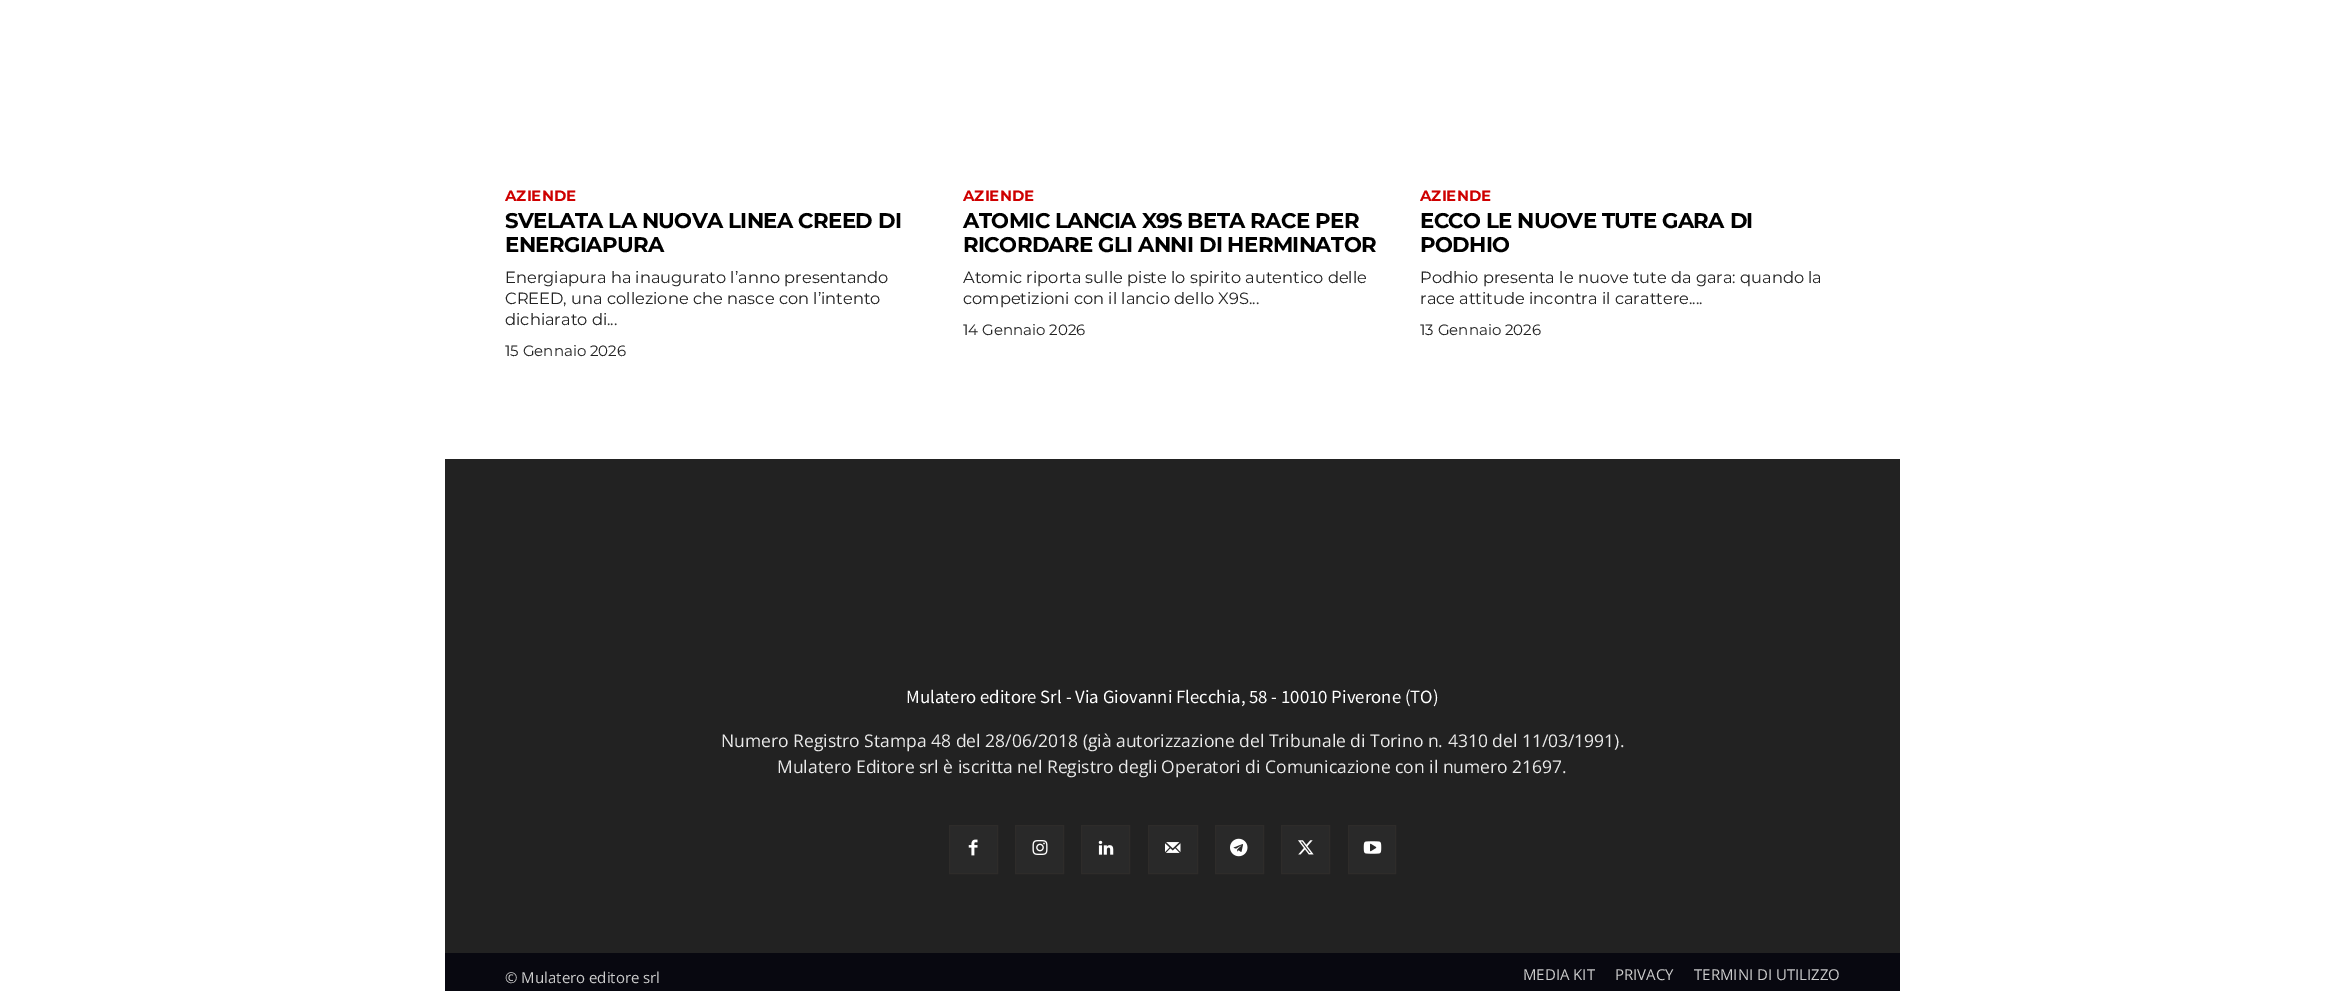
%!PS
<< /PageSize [2345 991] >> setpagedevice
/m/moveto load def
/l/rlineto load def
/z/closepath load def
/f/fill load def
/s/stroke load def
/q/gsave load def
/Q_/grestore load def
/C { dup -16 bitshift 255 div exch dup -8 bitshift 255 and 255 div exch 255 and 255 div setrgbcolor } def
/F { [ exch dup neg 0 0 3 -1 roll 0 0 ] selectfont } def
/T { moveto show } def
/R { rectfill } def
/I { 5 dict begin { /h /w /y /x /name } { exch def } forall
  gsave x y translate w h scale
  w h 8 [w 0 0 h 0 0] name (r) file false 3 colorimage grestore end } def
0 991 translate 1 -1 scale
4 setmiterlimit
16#FFFFFF C
0 0 2345 991 R
/Montserrat-Bold 15 F
16#CE0000 C
(AZIENDE) 505 201 T
/Montserrat-Bold 21.25 F
16#000000 C
505 228 m -.6 0 (SVELATA LA NUOVA LINEA CREED DI) ashow
505 252 m -.6 0 (ENERGIAPURA) ashow
/Montserrat-Regular 16.25 F
16#222222 C
(Energiapura ha inaugurato l’anno presentando) 505 283 T
(CREED, una collezione che nasce con l’intento) 505 304 T
(dichiarato di...) 505 325 T
/Montserrat-Regular 15 F
(15 Gennaio 2026) 505 356 T
/Montserrat-Bold 15 F
16#CE0000 C
(AZIENDE) 963 201 T
/Montserrat-Bold 21.25 F
16#000000 C
963 228 m -.6 0 (ATOMIC LANCIA X9S BETA RACE PER) ashow
963 252 m -.6 0 (RICORDARE GLI ANNI DI HERMINATOR) ashow
/Montserrat-Regular 16.25 F
16#222222 C
(Atomic riporta sulle piste lo spirito autentico delle) 963 283 T
(competizioni con il lancio dello X9S...) 963 304 T
/Montserrat-Regular 15 F
(14 Gennaio 2026) 963 335 T
/Montserrat-Bold 15 F
16#CE0000 C
(AZIENDE) 1420 201 T
/Montserrat-Bold 21.25 F
16#000000 C
1420 228 m -.6 0 (ECCO LE NUOVE TUTE GARA DI) ashow
1420 252 m -.6 0 (PODHIO) ashow
/Montserrat-Regular 16.25 F
16#222222 C
(Podhio presenta le nuove tute da gara: quando la) 1420 283 T
(race attitude incontra il carattere....) 1420 304 T
/Montserrat-Regular 15 F
(13 Gennaio 2026) 1420 335 T
445 459 1455 494 R
/SourceSansPro-Regular 18.75 F
16#FFFFFF C
(Mulatero editore Srl - Via Giovanni Flecchia, 58 - 10010 Piverone \(TO\)) 906 703 T
/OpenSans-Regular 17.5 F
16#EAEAEA C
(Numero Registro Stampa 48 del 28/06/2018 \(già autorizzazione del Tribunale di Torino n. 4310 del 11/03/1991\).) 721 747 T
(Mulatero Editore srl è iscritta nel Registro degli Operatori di Comunicazione con il numero 21697.) 777 773 T
16#292929 C
949.5 825.5 m 48 0 l 0 48 l -48 0 l z q f Q_
16#2E2C2A C
s
(1.rgb) 968 839 10 17 I
16#292929 C
1015.5 825.5 m 48 0 l 0 48 l -48 0 l z q f Q_
16#2E2C2A C
s
(2.rgb) 1032 840 16 15 I
16#292929 C
1081.5 825.5 m 48 0 l 0 48 l -48 0 l z q f Q_
16#2E2C2A C
s
(3.rgb) 1098 840 16 15 I
16#292929 C
1148.5 825.5 m 49 0 l 0 48 l -49 0 l z q f Q_
16#2E2C2A C
s
(4.rgb) 1165 842 16 11 I
16#292929 C
1215.5 825.5 m 48 0 l 0 48 l -48 0 l z q f Q_
16#2E2C2A C
s
(5.rgb) 1230 838 18 19 I
16#292929 C
1281.5 825.5 m 48 0 l 0 48 l -48 0 l z q f Q_
16#2E2C2A C
s
(6.rgb) 1298 840 16 15 I
16#292929 C
1348.5 825.5 m 47 0 l 0 48 l -47 0 l z q f Q_
16#2E2C2A C
s
(7.rgb) 1363 841 19 13 I
16#080810 C
445 953 1455 38 R
/OpenSans-Regular 15 F
16#CCCCCC C
(© Mulatero editore srl) 505 983 T
(MEDIA KIT) 1523 980 T
(PRIVACY) 1615 980 T
(TERMINI DI UTILIZZO) 1694 980 T
showpage
